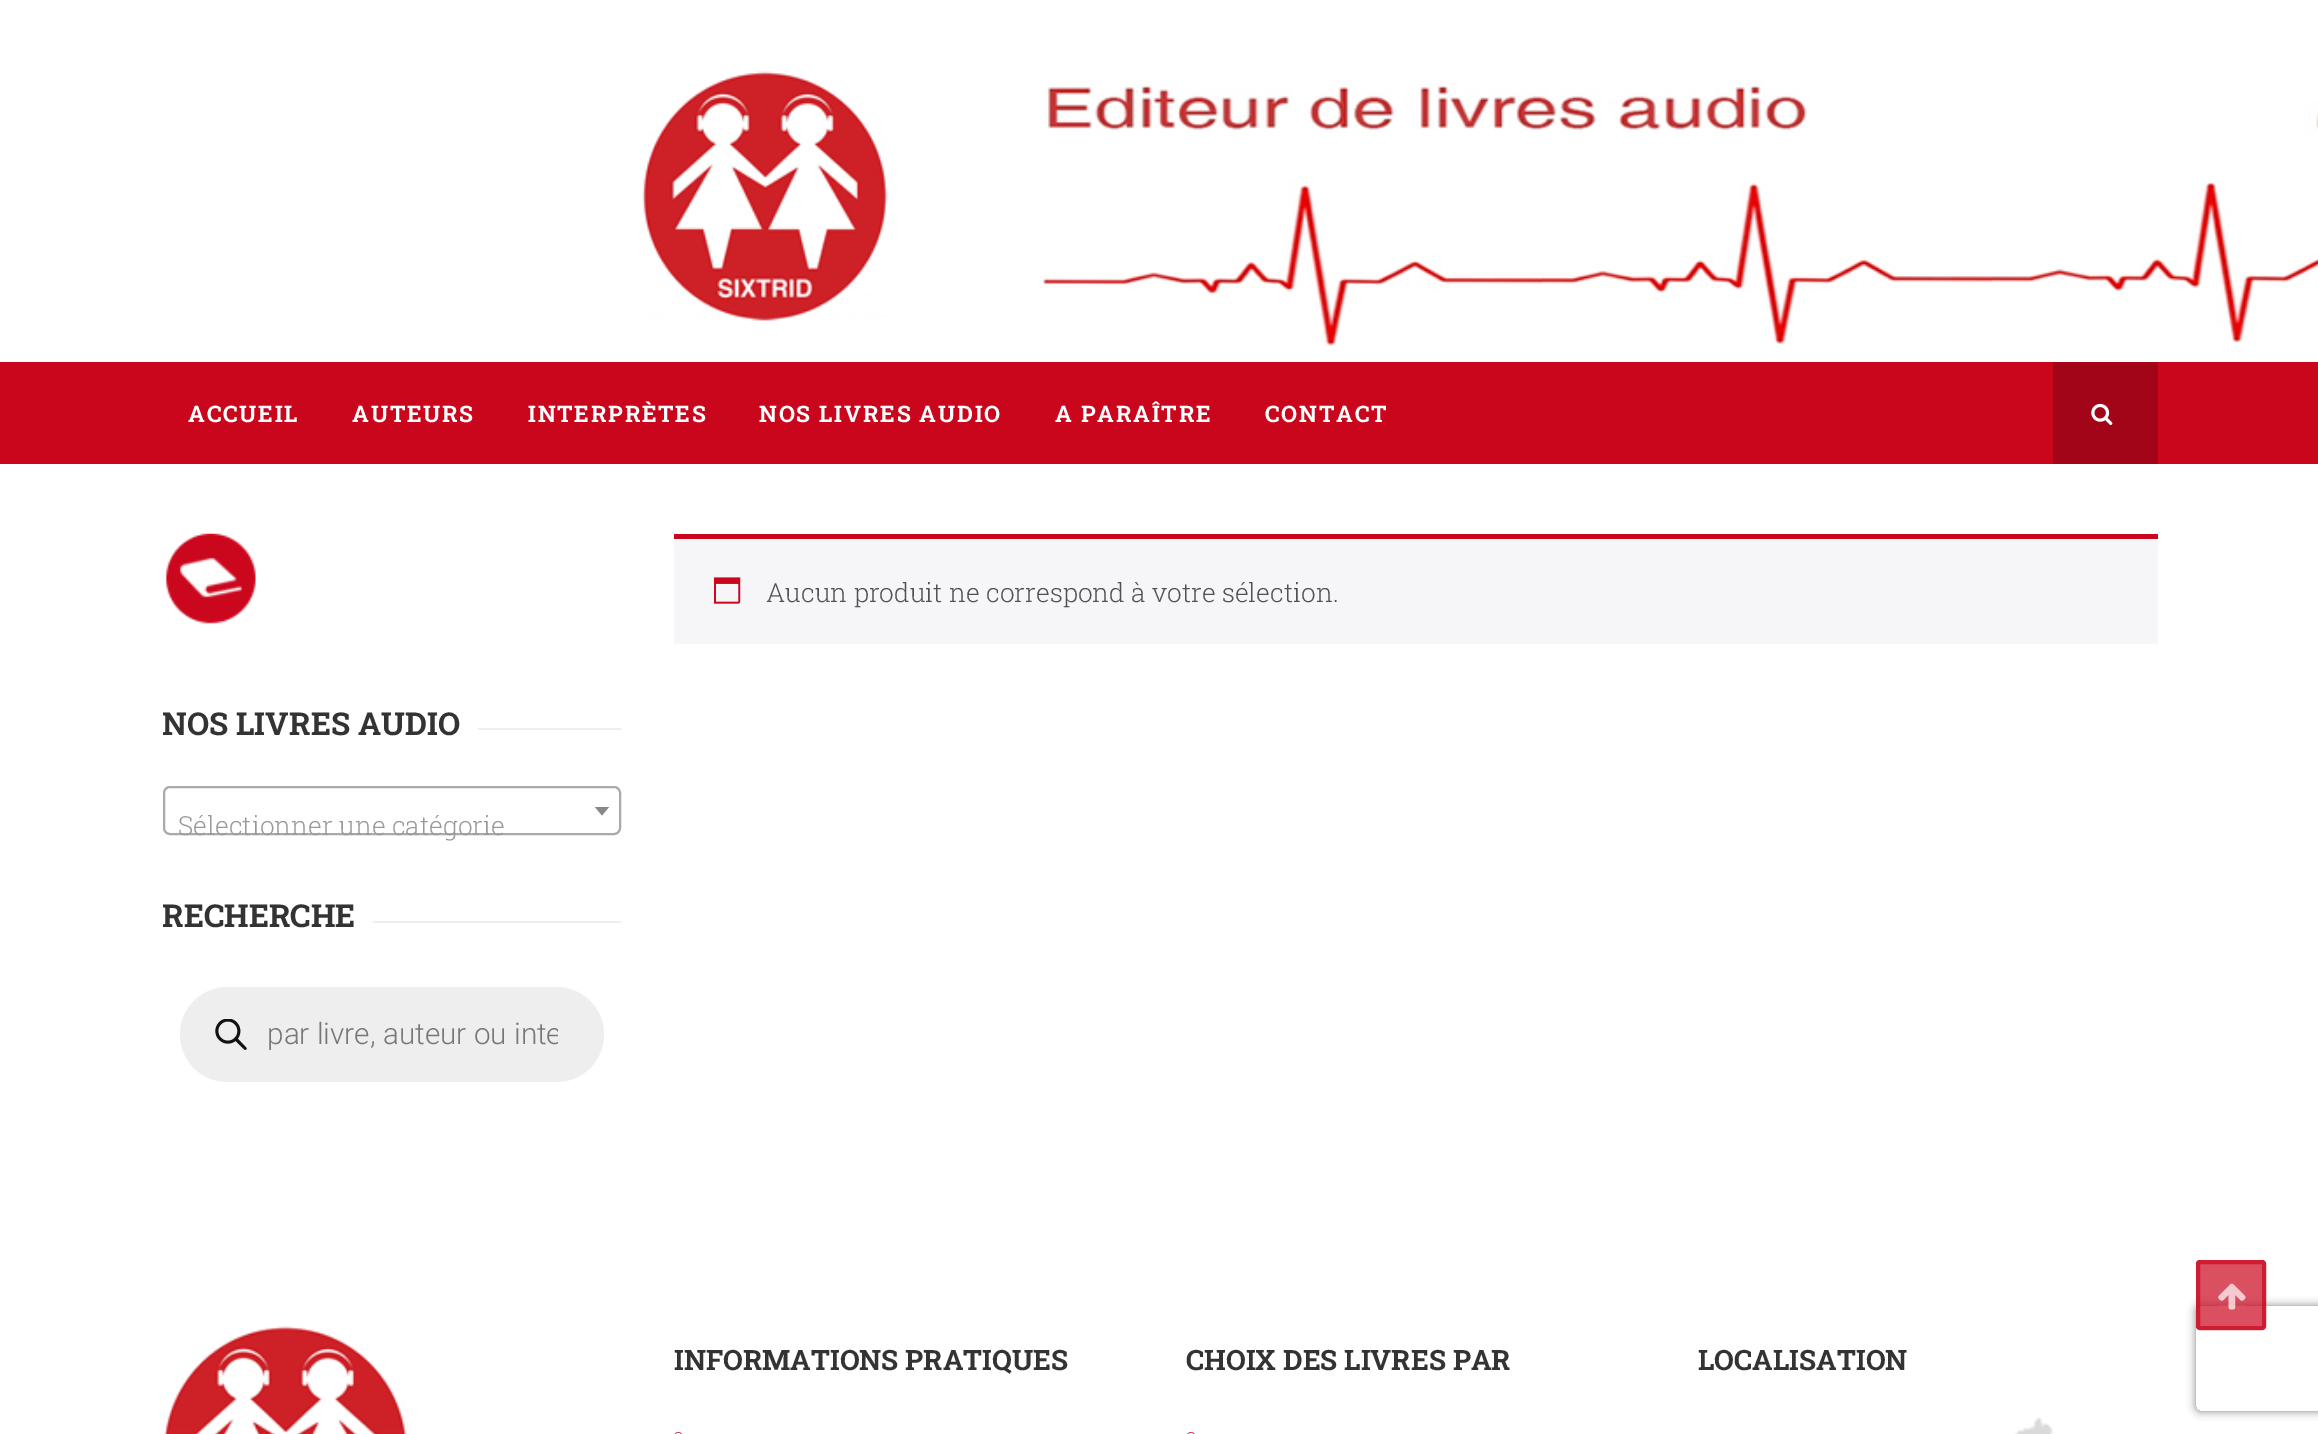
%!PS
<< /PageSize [2318 1434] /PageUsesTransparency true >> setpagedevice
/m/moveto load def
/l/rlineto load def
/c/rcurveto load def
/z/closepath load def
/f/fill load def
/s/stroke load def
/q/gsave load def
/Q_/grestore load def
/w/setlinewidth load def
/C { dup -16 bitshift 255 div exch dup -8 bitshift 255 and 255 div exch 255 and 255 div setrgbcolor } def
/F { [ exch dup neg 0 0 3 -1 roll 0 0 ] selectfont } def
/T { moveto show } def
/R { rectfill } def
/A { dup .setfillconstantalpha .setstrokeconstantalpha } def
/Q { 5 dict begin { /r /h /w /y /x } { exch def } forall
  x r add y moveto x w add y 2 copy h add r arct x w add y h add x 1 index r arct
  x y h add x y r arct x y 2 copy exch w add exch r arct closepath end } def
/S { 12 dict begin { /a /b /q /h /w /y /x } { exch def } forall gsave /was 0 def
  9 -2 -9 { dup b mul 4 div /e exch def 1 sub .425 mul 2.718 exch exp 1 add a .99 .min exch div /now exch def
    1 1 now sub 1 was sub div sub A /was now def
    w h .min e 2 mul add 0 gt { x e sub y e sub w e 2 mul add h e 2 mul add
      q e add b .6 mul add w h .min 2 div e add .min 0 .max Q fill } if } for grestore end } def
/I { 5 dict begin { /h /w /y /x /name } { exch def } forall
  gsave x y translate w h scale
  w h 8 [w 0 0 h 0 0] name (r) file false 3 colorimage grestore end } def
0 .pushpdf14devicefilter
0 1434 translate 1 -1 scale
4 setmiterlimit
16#FFFFFF C
0 0 2318 1434 R
(1.rgb) 642 71 1676 275 I
16#CA061D C
0 362 2318 102 R
/RobotoSlab-Bold 22.75 F
16#FFFFFF C
188 422 m 1.75 0 (ACCUEIL) ashow
352 422 m 1.75 0 (AUTEURS) ashow
528 422 m 1.75 0 (INTERPRÈTES) ashow
759 422 m 1.75 0 (NOS LIVRES AUDIO) ashow
1055 422 m 1.75 0 (A PARAÎTRE) ashow
1265 422 m 1.75 0 (CONTACT) ashow
16#A20517 C
2053 362 105 102 R
(2.rgb) 2091 403 22 22 I
16#F6F5F8 C
674 539 1484 105 R
16#CA061D C
674 534 1484 5 R
(3.rgb) 714 577 27 27 I
/RobotoSlab-Light 26.25 F
16#515151 C
(Aucun produit ne correspond à votre sélection.) 766 602 T
(4.rgb) 165 533 91 91 I
q
163 707 458 35 rectclip
/RobotoSlab-Bold 31.5 F
16#333333 C
(NOS LIVRES AUDIO) 162 735 T
Q_
16#EEEEEE C
478 728 143 2 R
16#AAAAAA C
2 w
164 787 456 47 6 Q s
16#888888 C
595 807 m 14 0 l -7 8.5 l z f
16#999999 C
(Sélectionner une catégorie) 178 835 T
q
163 900 458 35 rectclip
/RobotoSlab-Bold 31.5 F
16#333333 C
(RECHERCHE) 162 927 T
Q_
16#EEEEEE C
373 921 248 2 R
180 987 424 95 47.5 Q f
(5.rgb) 215 1019 32 31 I
q
268 1017 290 35 rectclip
/Roboto-Light 29.75 F
16#777777 C
(par livre, auteur ou inte) 267 1044 T
Q_
q
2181 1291 m 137 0 l 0 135 l -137 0 l z 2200 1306 m 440 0 l 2 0 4 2 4 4 c 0 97 l 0 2 -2 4 -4 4 c -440 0 l -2 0 -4 -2 -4 -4 c 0 -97 l 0 -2 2 -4 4 -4 c z eoclip newpath
16#808080 C
2196 1306 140 105 4 4.5 1 S
Q_
0.7 A
16#CA061D C
2196 1260 70 70 4 Q f
4 w
2198 1262 66 66 2 Q s
1 A
(6.rgb) 2218 1283 28 27 I
(7.rgb) 164 1326 243 108 I
/RobotoSlab-Bold 28 F
16#333333 C
(INFORMATIONS PRATIQUES) 674 1370 T
(8.rgb) 674 1432 8 2 I
(CHOIX DES LIVRES PAR) 1186 1370 T
(9.rgb) 1187 1432 8 2 I
(LOCALISATION) 1698 1370 T
(10.rgb) 2015 1417 38 17 I
.poppdf14devicefilter showpage
